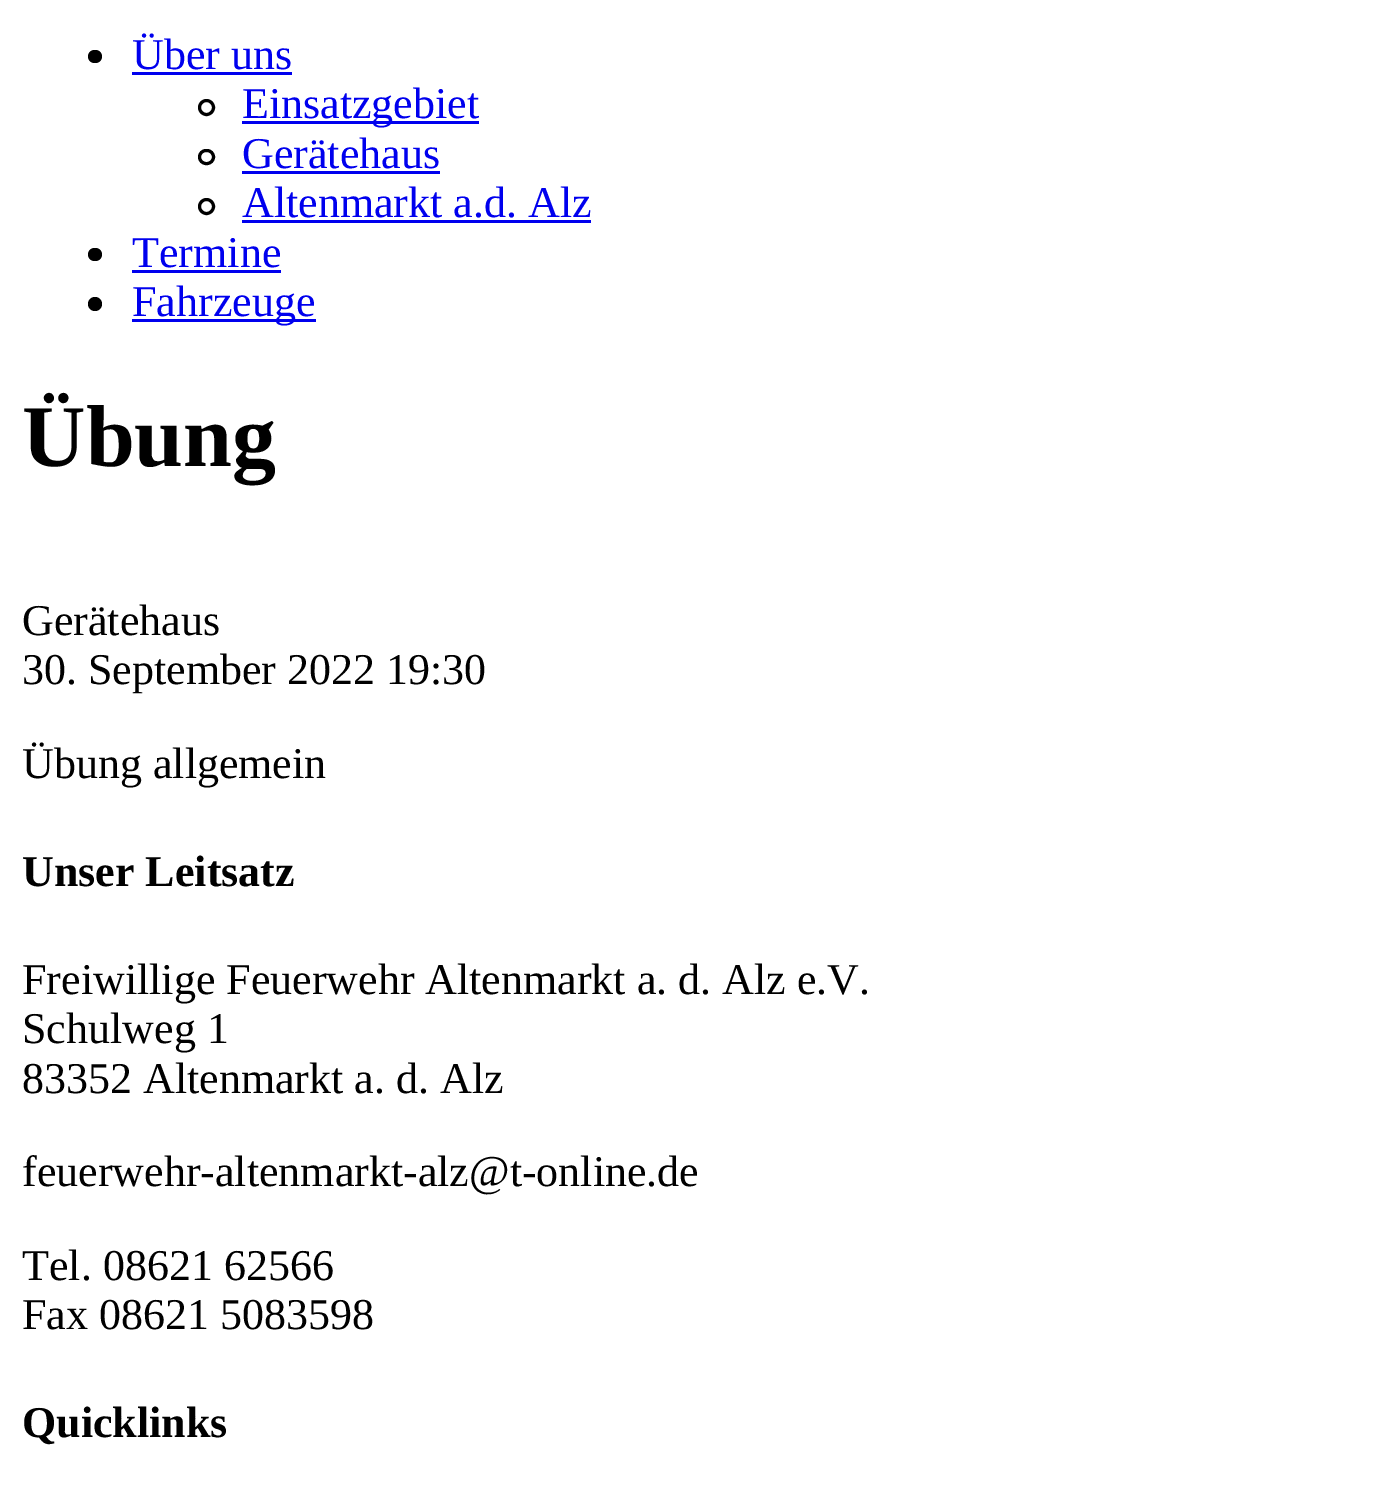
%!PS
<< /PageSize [1391 1506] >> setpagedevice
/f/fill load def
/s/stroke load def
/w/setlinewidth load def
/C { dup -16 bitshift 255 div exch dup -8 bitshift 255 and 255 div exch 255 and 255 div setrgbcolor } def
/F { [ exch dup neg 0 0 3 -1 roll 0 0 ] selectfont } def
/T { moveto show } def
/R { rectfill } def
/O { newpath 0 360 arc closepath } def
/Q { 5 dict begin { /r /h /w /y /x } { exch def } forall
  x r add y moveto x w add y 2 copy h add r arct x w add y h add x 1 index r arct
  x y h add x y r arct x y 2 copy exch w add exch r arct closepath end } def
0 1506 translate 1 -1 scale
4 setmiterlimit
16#FFFFFF C
0 0 1391 1506 R
16#000000 C
88 50 14 13 6.5 Q f
/LiberationSerif-Regular 44 F
16#0000EE C
(Über uns) 132 69 T
132 72 160 3 R
16#000000 C
3 w
206.5 107.5 7 O s
16#0000EE C
242 121 237 3 R
(Einsatzgebiet) 242 118 T
16#000000 C
199.5 150.5 14 13 6.5 Q s
16#0000EE C
(Gerätehaus) 242 168 T
242 171 198 3 R
16#000000 C
206.5 206.5 7 O s
16#0000EE C
(Altenmarkt a.d. Alz) 242 217 T
242 220 349 3 R
16#000000 C
88 248 14 13 6.5 Q f
16#0000EE C
(Termine) 132 267 T
132 270 149 3 R
16#000000 C
95 304 7 O f
16#0000EE C
132 319 184 3 R
(Fahrzeuge) 132 316 T
/LiberationSerif-Bold 88 F
16#000000 C
(Übung) 22 466 T
/LiberationSerif-Regular 44 F
(Gerätehaus) 22 635 T
(30. September 2022 19:30) 22 684 T
(Übung allgemein) 22 778 T
/LiberationSerif-Bold 44 F
(Unser Leitsatz) 22 886 T
/LiberationSerif-Regular 44 F
(Freiwillige Feuerwehr Altenmarkt a. d. Alz e.V.) 22 994 T
(Schulweg 1) 22 1043 T
(83352 Altenmarkt a. d. Alz) 22 1093 T
(feuerwehr-altenmarkt-alz@t-online.de) 22 1186 T
(Tel. 08621 62566) 22 1280 T
(Fax 08621 5083598) 22 1329 T
/LiberationSerif-Bold 44 F
(Quicklinks) 22 1437 T
showpage
